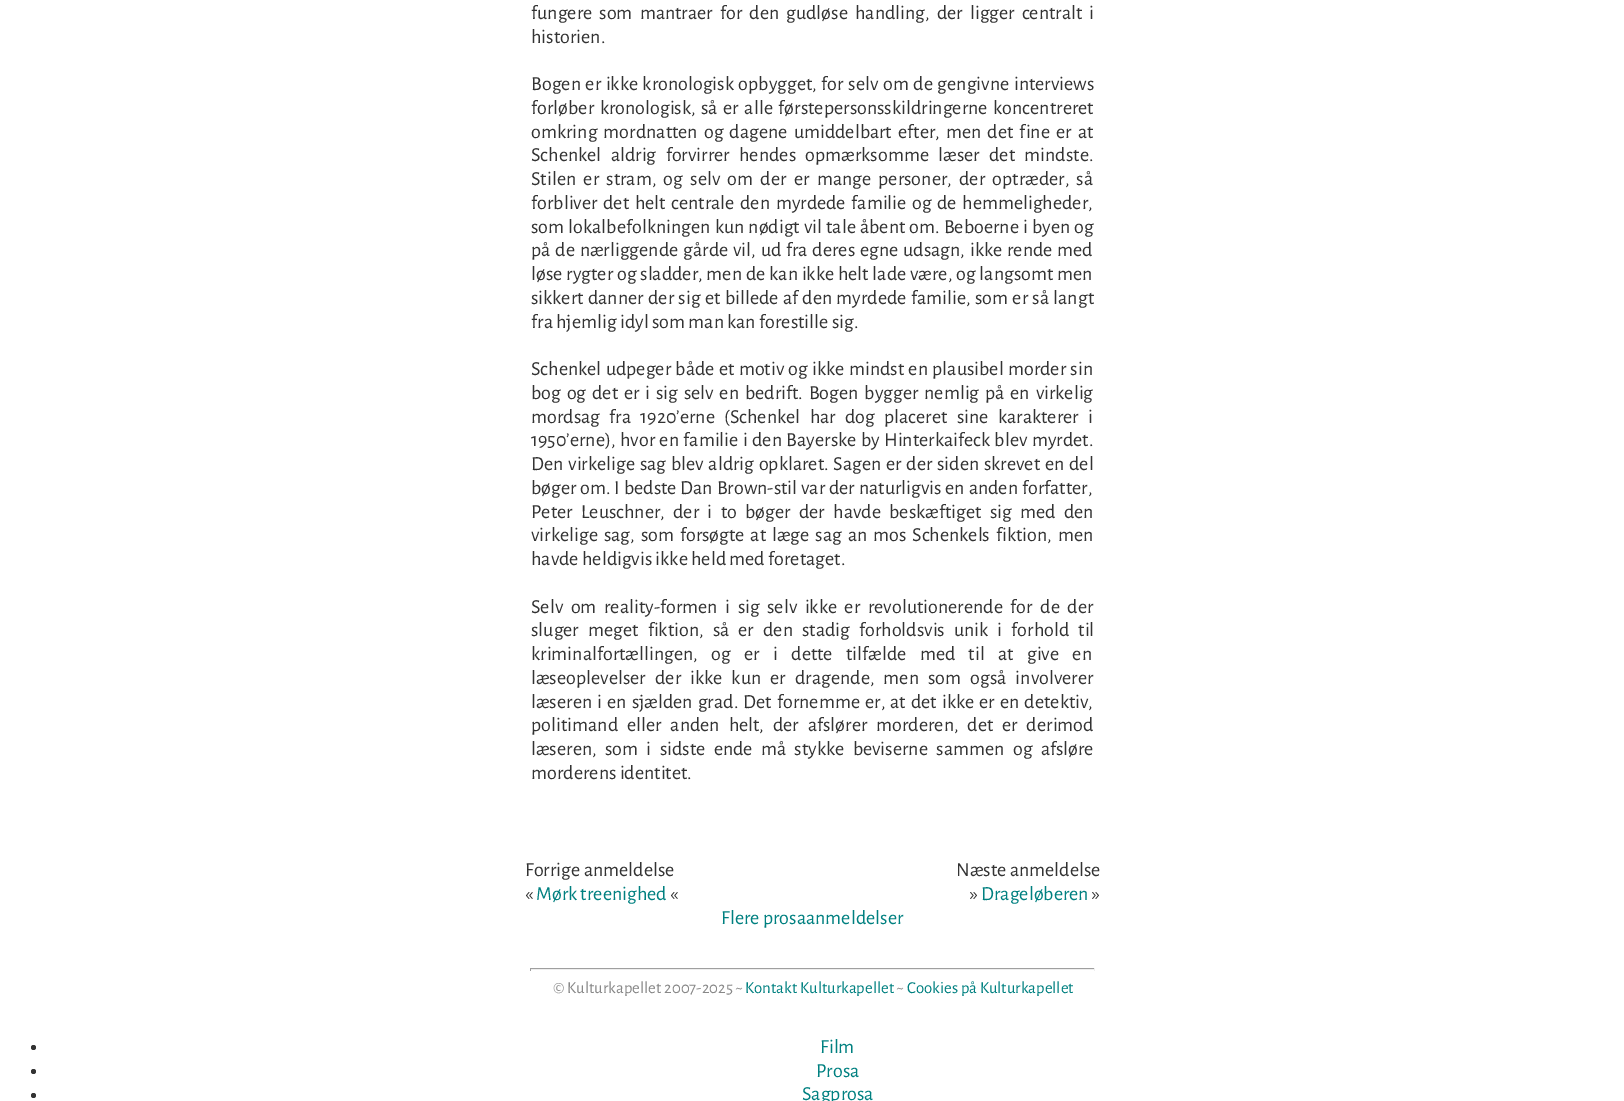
%!PS
<< /PageSize [1624 1101] >> setpagedevice
/m/moveto load def
/f/fill load def
/C { dup -16 bitshift 255 div exch dup -8 bitshift 255 and 255 div exch 255 and 255 div setrgbcolor } def
/F { [ exch dup neg 0 0 3 -1 roll 0 0 ] selectfont } def
/T { moveto show } def
/R { rectfill } def
/O { newpath 0 360 arc closepath } def
0 1101 translate 1 -1 scale
4 setmiterlimit
16#FFFFFF C
0 0 1624 1101 R
/AlegreyaSans-Regular 20 F
16#333333 C
531 19 m 3.75 0 32 (fungere som mantraer for den gudløse handling, der ligger centralt i) widthshow
(historien.) 531 43 T
531 90 m 1.25 0 32 (Bogen er ikke kronologisk opbygget, for selv om de gengivne interviews) widthshow
531 114 m 2.25 0 32 (forløber kronologisk, så er alle førstepersonsskildringerne koncentreret) widthshow
531 138 m 2.75 0 32 (omkring mordnatten og dagene umiddelbart efter, men det fine er at) widthshow
531 161 m 6 0 32 (Schenkel aldrig forvirrer hendes opmærksomme læser det mindste.) widthshow
531 185 m 3.9 0 32 (Stilen er stram, og selv om der er mange personer, der optræder, så) widthshow
531 209 m 2.25 0 32 (forbliver det helt centrale den myrdede familie og de hemmeligheder,) widthshow
531 233 m .75 0 32 (som lokalbefolkningen kun nødigt vil tale åbent om. Beboerne i byen og) widthshow
531 256 m 1.5 0 32 (på de nærliggende gårde vil, ud fra deres egne udsagn, ikke rende med) widthshow
531 280 m .5 0 32 (løse rygter og sladder, men de kan ikke helt lade være, og langsomt men) widthshow
531 304 m 1 0 32 (sikkert danner der sig et billede af den myrdede familie, som er så langt) widthshow
(fra hjemlig idyl som man kan forestille sig.) 531 328 T
531 375 m 1 0 32 (Schenkel udpeger både et motiv og ikke mindst en plausibel morder sin) widthshow
531 399 m 2.5 0 32 (bog og det er i sig selv en bedrift. Bogen bygger nemlig på en virkelig) widthshow
531 423 m 6 0 32 (mordsag fra 1920’erne \(Schenkel har dog placeret sine karakterer i) widthshow
531 446 m 1.1 0 32 (1950’erne\), hvor en familie i den Bayerske by Hinterkaifeck blev myrdet.) widthshow
531 470 m 1.4 0 32 (Den virkelige sag blev aldrig opklaret. Sagen er der siden skrevet en del) widthshow
531 494 m .5 0 32 (bøger om. I bedste Dan Brown-stil var der naturligvis en anden forfatter,) widthshow
531 518 m 5 0 32 (Peter Leuschner, der i to bøger der havde beskæftiget sig med den) widthshow
531 541 m 2.6 0 32 (virkelige sag, som forsøgte at læge sag an mos Schenkels fiktion, men) widthshow
(havde heldigvis ikke held med foretaget.) 531 565 T
531 613 m 4.25 0 32 (Selv om reality-formen i sig selv ikke er revolutionerende for de der) widthshow
531 636 m 5.75 0 32 (sluger meget fiktion, så er den stadig forholdsvis unik i forhold til) widthshow
531 660 m 10 0 32 (kriminalfortællingen, og er i dette tilfælde med til at give en) widthshow
531 684 m 5.75 0 32 (læseoplevelser der ikke kun er dragende, men som også involverer) widthshow
531 708 m 1.75 0 32 (læseren i en sjælden grad. Det fornemme er, at det ikke er en detektiv,) widthshow
531 731 m 5.5 0 32 (politimand eller anden helt, der afslører morderen, det er derimod) widthshow
531 755 m 5 0 32 (læseren, som i sidste ende må stykke beviserne sammen og afsløre) widthshow
(morderens identitet.) 531 779 T
(Forrige anmeldelse) 525 876 T
(«) 525 900 T
16#008080 C
(Mørk treenighed) 536 900 T
16#333333 C
(«) 670 900 T
(Næste anmeldelse) 956 876 T
(») 970 900 T
16#008080 C
(Drageløberen) 981 900 T
16#333333 C
(») 1092 900 T
16#008080 C
(Flere prosaanmeldelser) 721 924 T
16#9F9F9F C
530 968 565 1 R
16#EEEEEE C
1094 968 1 3 R
530 969 565 1 R
16#9F9F9F C
530 968 1 3 R
/AlegreyaSans-Regular 16.75 F
16#888888 C
(© Kulturkapellet 2007-2025 ~) 553 993 T
16#008080 C
(Kontakt Kulturkapellet) 745 993 T
16#888888 C
(~) 896 993 T
16#008080 C
(Cookies på Kulturkapellet) 907 993 T
16#333333 C
33.5 1047.5 2.5 O f
/AlegreyaSans-Regular 20 F
16#008080 C
(Film) 820 1053 T
16#333333 C
33.5 1071.5 2.5 O f
16#008080 C
(Prosa) 816 1077 T
16#333333 C
33.5 1095.5 2.5 O f
16#008080 C
(Sagprosa) 802 1100 T
showpage
